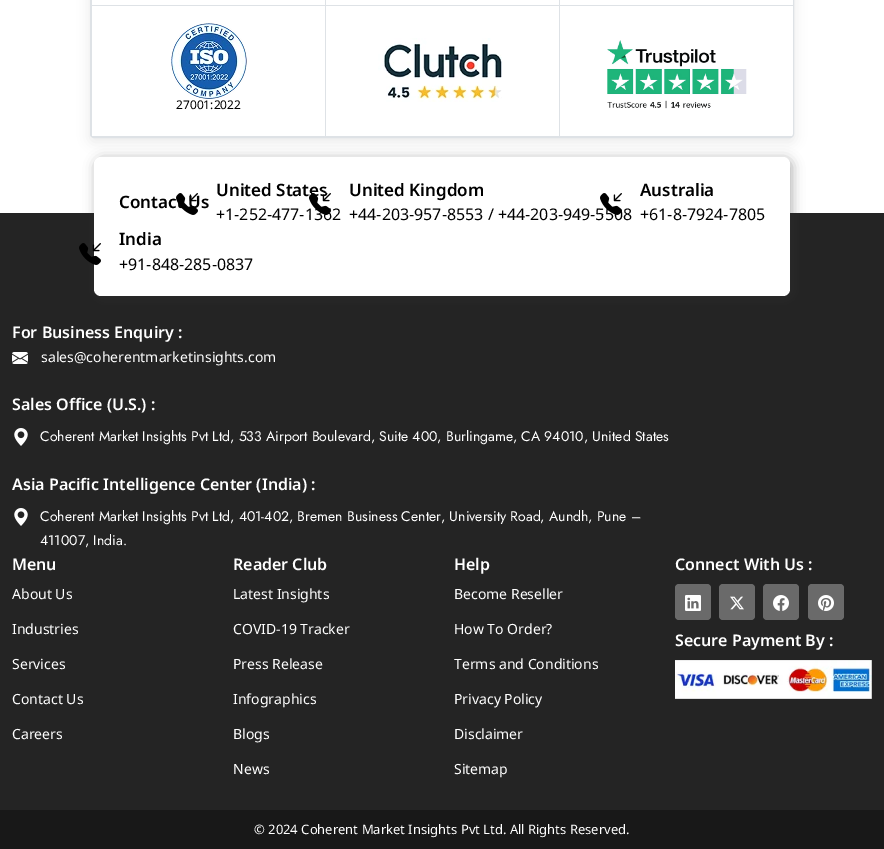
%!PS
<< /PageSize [884 849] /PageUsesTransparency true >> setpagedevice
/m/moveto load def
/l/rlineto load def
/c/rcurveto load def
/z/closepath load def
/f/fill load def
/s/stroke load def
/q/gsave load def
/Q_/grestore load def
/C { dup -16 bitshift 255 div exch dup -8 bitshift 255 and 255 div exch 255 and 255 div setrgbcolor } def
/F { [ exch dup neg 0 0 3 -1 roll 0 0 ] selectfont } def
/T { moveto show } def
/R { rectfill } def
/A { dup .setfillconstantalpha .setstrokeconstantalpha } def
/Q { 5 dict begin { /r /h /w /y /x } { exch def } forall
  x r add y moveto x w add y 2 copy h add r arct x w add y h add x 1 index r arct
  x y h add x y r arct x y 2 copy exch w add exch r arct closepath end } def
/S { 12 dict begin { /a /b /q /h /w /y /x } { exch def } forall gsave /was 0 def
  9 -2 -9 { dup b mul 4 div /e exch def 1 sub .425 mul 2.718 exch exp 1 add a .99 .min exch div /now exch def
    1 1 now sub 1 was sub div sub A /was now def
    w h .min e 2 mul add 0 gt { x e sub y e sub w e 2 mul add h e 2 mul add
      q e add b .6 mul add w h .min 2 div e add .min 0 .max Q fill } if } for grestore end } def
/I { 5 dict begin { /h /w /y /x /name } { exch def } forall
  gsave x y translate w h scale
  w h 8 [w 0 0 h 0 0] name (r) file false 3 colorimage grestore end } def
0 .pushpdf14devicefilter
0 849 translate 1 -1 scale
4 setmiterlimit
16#FFFFFF C
0 0 884 849 R
16#242424 C
0 213 884 597 R
16#343434 C
96 159 696 139 7 6 .4 S
16#FFFFFF C
94 157 696 139 7 Q f
q
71 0 m 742 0 l 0 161 l -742 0 l z 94 -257 m 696 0 l 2 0 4 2 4 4 c 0 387 l 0 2 -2 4 -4 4 c -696 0 l -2 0 -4 -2 -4 -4 c 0 -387 l 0 -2 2 -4 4 -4 c z eoclip newpath
16#000000 C
90 -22 704 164 4 6 .08 S
Q_
16#DEE2E6 C
90.5 -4.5 703 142 3.5 Q s
91 5 702 1 R
91 0 1 6 R
325 0 1 6 R
559 0 1 6 R
q
91 -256 702 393 3 Q clip newpath
91 136 234 1 R
91 6 1 131 R
Q_
(1.rgb) 171 23 76 76 I
/NotoSans-Regular 12 F
16#000000 C
(27001:2022) 176 109 T
16#DEE2E6 C
325 136 234 1 R
325 6 1 131 R
(2.rgb) 378 38 124 64 I
q
91 -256 702 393 3 Q clip newpath
559 136 234 1 R
Q_
559 6 1 131 R
(3.rgb) 607 40 140 69 I
/NotoSans-SemiBold 17 F
16#000000 C
(Contact Us) 119 208 T
(United States) 216 196 T
(4.rgb) 176 193 22 22 I
/NotoSans-Regular 16 F
(+1-252-477-1362) 216 220 T
(5.rgb) 309 193 22 22 I
/NotoSans-SemiBold 17 F
(United Kingdom) 349 196 T
/NotoSans-Regular 16 F
(+44-203-957-8553 / +44-203-949-5508) 349 220 T
/NotoSans-SemiBold 17 F
(Australia) 640 196 T
(6.rgb) 600 193 22 22 I
/NotoSans-Regular 16 F
(+61-8-7924-7805) 640 220 T
/NotoSans-SemiBold 17 F
(India) 119 245 T
(7.rgb) 79 243 22 22 I
/NotoSans-Regular 16 F
(+91-848-285-0837) 119 270 T
/NotoSans-SemiBold 16 F
16#FFFFFF C
(For Business Enquiry :) 12 338 T
(8.rgb) 12 352 16 12 I
/NotoSans-Regular 14 F
(sales@coherentmarketinsights.com) 41 362 T
/NotoSans-SemiBold 16 F
(Sales Office \(U.S.\) :) 12 410 T
(9.rgb) 14 428 14 18 I
/Jost-Regular 14 F
(Coherent Market Insights Pvt Ltd, 533 Airport Boulevard, Suite 400, Burlingame, CA 94010, United States) 40 441 T
/NotoSans-SemiBold 16 F
(Asia Pacific Intelligence Center \(India\) :) 12 490 T
(9.rgb) 14 508 14 18 I
/Jost-Regular 14 F
(Coherent Market Insights Pvt Ltd, 401-402, Bremen Business Center, University Road, Aundh, Pune –) 40 521 T
(411007, India.) 40 545 T
/NotoSans-SemiBold 16 F
(Menu) 12 570 T
/NotoSans-Regular 14 F
(About Us) 12 599 T
(Industries) 12 634 T
(Services) 12 669 T
(Contact Us) 12 704 T
(Careers) 12 739 T
/NotoSans-SemiBold 16 F
(Reader Club) 233 570 T
/NotoSans-Regular 14 F
(Latest Insights) 233 599 T
(COVID-19 Tracker) 233 634 T
(Press Release) 233 669 T
(Infographics) 233 704 T
(Blogs) 233 739 T
(News) 233 774 T
/NotoSans-SemiBold 16 F
(Help) 454 570 T
/NotoSans-Regular 14 F
(Become Reseller) 454 599 T
(How To Order?) 454 634 T
(Terms and Conditions) 454 669 T
(Privacy Policy) 454 704 T
(Disclaimer) 454 739 T
(Sitemap) 454 774 T
/NotoSans-SemiBold 16 F
(Connect With Us :) 675 570 T
16#6A6A6A C
675 584 36 36 4 Q f
(10.rgb) 685 595 16 16 I
719 584 36 36 4 Q f
(11.rgb) 730 596 14 14 I
763 584 36 36 4 Q f
(12.rgb) 773 595 16 16 I
808 584 36 36 4 Q f
(13.rgb) 818 595 16 16 I
16#FFFFFF C
(Secure Payment By :) 675 646 T
(14.rgb) 675 660 197 39 I
16#181818 C
0 810 884 39 R
/NotoSans-Regular 13 F
16#FFFFFF C
(© 2024 Coherent Market Insights Pvt Ltd. All Rights Reserved.) 254 834 T
.poppdf14devicefilter showpage
